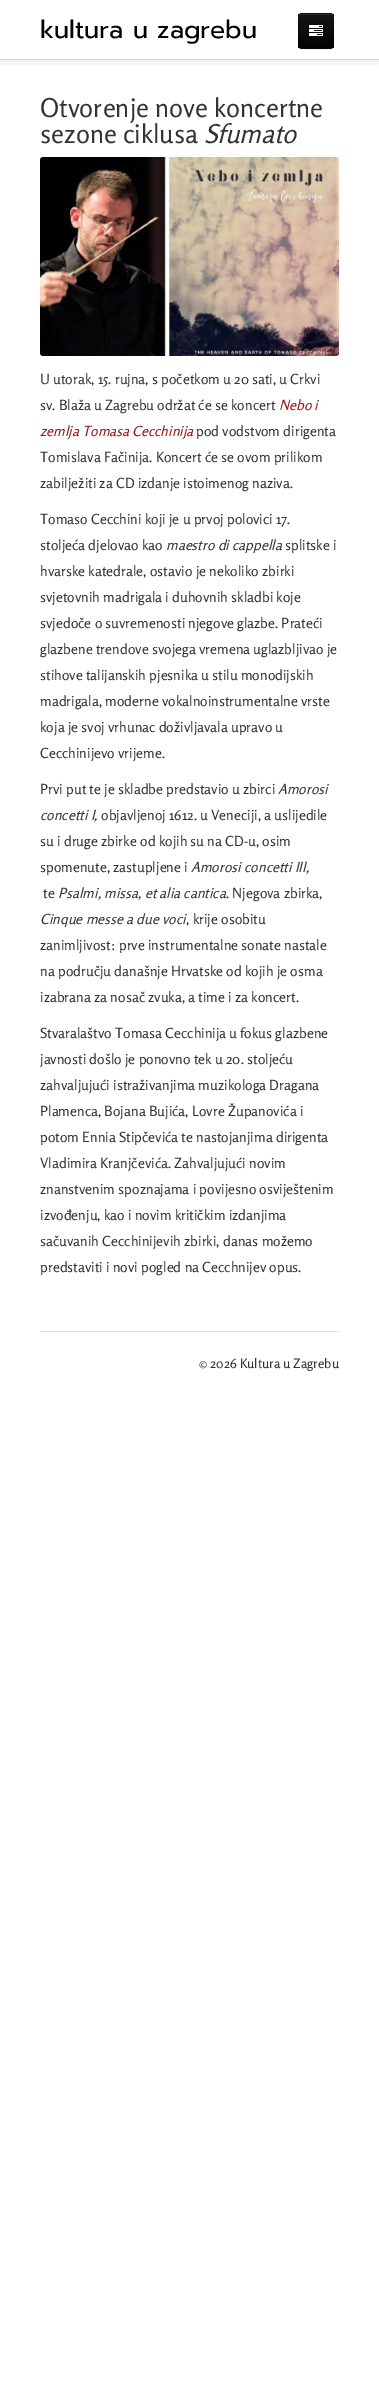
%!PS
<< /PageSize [379 2384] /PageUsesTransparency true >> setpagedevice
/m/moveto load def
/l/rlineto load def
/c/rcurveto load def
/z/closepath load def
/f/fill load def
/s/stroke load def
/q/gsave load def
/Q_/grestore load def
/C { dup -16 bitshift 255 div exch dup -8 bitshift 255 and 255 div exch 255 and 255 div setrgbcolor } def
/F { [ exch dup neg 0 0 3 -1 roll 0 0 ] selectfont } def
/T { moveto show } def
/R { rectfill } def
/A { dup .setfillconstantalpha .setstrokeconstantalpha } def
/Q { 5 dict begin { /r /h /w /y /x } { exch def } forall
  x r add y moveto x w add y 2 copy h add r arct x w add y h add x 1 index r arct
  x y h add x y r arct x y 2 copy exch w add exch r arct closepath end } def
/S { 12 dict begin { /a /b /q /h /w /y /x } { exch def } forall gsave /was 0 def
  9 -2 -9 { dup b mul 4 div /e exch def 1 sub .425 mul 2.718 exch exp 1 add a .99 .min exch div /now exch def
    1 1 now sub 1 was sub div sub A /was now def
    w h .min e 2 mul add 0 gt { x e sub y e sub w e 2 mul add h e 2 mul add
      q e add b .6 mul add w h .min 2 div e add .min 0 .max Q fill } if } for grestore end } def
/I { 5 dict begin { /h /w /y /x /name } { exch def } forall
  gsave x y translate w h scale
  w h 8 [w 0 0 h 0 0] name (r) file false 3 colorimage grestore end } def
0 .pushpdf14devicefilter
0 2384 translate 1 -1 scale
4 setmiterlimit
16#FFFFFF C
0 0 379 2384 R
q
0 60 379 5 rectclip
16#000000 C
0 1 379 60 0 5 .1 S
Q_
16#D4D4D4 C
0 59 379 1 R
/Prompt-Regular 25 F
16#000000 C
(kultura u zagrebu) 40 38 T
16#0E0E0E C
298 13 36 36 4 Q f
q
298 13 36 36 4 Q clip newpath
q 298 14 m 36 0 l 0 34 l -36 0 l z clip newpath
<< /ShadingType 2 /ColorSpace /DeviceRGB /Coords [316 14 316 48] /Extend [true true] /Function << /FunctionType 2 /Domain [0 1] /C0 [.082 .082 .082] /C1 [.016 .016 .016] /N 1 >> >> shfill Q_
Q_
16#2C2C2C C
302 15 m 28 0 l 2 0 3 1 3 3 c 0 -5 -3.5 -4 -7.5 -4 c -19 0 l -4 0 -7.5 -1 -7.5 4 c 0 -2 1 -3 3 -3 c z f
0.25 A
16#000000 C
332.5 47.5 m -.5 .5 -1.5 1 -2.5 1 c -28 0 l -1 0 -2 -.5 -2.5 -1 c s
0.1 A
299.5 47.5 m -1.5 -2 -1 -5.5 -1 -7 c 0 -9.5 l 0 -20.5 -3 -17.5 17.5 -17.5 c 20.5 0 17.5 -3 17.5 17.5 c 0 9.5 l 0 1.5 .5 5 -1 7 c s
1 A
(1.rgb) 309 25 14 11 I
/Rosario-Regular 26 F
16#333333 C
(Otvorenje nove koncertne) 40 117 T
(sezone ciklusa) 40 143 T
/Rosario-Italic 26 F
(Sfumato) 204 143 T
(2.rgb) 40 157 299 199 I
/Rosario-Regular 14 F
(U utorak, 15. rujna, s početkom u 20 sati, u Crkvi) 40 384 T
(sv. Blaža u Zagrebu održat će se koncert) 40 410 T
/Rosario-Italic 14 F
16#991414 C
(Nebo i) 279 410 T
(zemlja Tomasa Cecchinija) 40 436 T
/Rosario-Regular 14 F
16#333333 C
(pod vodstvom dirigenta) 196 436 T
(Tomislava Fačinija. Koncert će se ovom prilikom) 40 462 T
(zabilježiti za CD izdanje istoimenog naziva.) 40 488 T
(Tomaso Cecchini koji je u prvoj polovici 17.) 40 524 T
(stoljeća djelovao kao) 40 550 T
/Rosario-Italic 14 F
(maestro di cappella) 166 550 T
/Rosario-Regular 14 F
(splitske i) 285 550 T
(hvarske katedrale, ostavio je nekoliko zbirki) 40 576 T
(svjetovnih madrigala i duhovnih skladbi koje) 40 602 T
(svjedoče o suvremenosti njegove glazbe. Prateći) 40 628 T
(glazbene trendove svojega vremena uglazbljivao je) 40 654 T
(stihove talijanskih pjesnika u stilu monodijskih) 40 680 T
(madrigala, moderne vokalnoinstrumentalne vrste) 40 706 T
(koja je svoj vrhunac doživljavala upravo u) 40 732 T
(Cecchinijevo vrijeme.) 40 758 T
(Prvi put te je skladbe predstavio u zbirci) 40 794 T
/Rosario-Italic 14 F
(Amorosi) 278 794 T
(concetti I,) 40 820 T
/Rosario-Regular 14 F
(objavljenoj 1612. u Veneciji, a uslijedile) 101 820 T
(su i druge zbirke od kojih su na CD-u, osim) 40 846 T
(spomenute, zastupljene i) 40 872 T
/Rosario-Italic 14 F
(Amorosi concetti III,) 191 872 T
/Rosario-Regular 14 F
(te) 43 898 T
/Rosario-Italic 14 F
(Psalmi, missa, et alia cantica) 58 898 T
/Rosario-Regular 14 F
(. Njegova zbirka,) 226 898 T
/Rosario-Italic 14 F
(Cinque messe a due voci) 40 924 T
/Rosario-Regular 14 F
(, krije osobitu) 186 924 T
(zanimljivost: prve instrumentalne sonate nastale) 40 950 T
(na području današnje Hrvatske od kojih je osma) 40 976 T
(izabrana za nosač zvuka, a time i za koncert.) 40 1002 T
(Stvaralaštvo Tomasa Cecchinija u fokus glazbene) 40 1038 T
(javnosti došlo je ponovno tek u 20. stoljeću) 40 1064 T
(zahvaljujući istraživanjima muzikologa Dragana) 40 1090 T
(Plamenca, Bojana Bujića, Lovre Županovića i) 40 1116 T
(potom Ennia Stipčevića te nastojanjima dirigenta) 40 1142 T
(Vladimira Kranjčevića. Zahvaljujući novim) 40 1168 T
(znanstvenim spoznajama i povijesno osviještenim) 40 1194 T
(izvođenju, kao i novim kritičkim izdanjima) 40 1220 T
(sačuvanih Cecchinijevih zbirki, danas možemo) 40 1246 T
(predstaviti i novi pogled na Cecchnijev opus.) 40 1272 T
16#EADED5 C
40 1331 299 1 R
/Rosario-Regular 13 F
16#333333 C
(© 2026 Kultura u Zagrebu) 199 1368 T
.poppdf14devicefilter showpage
